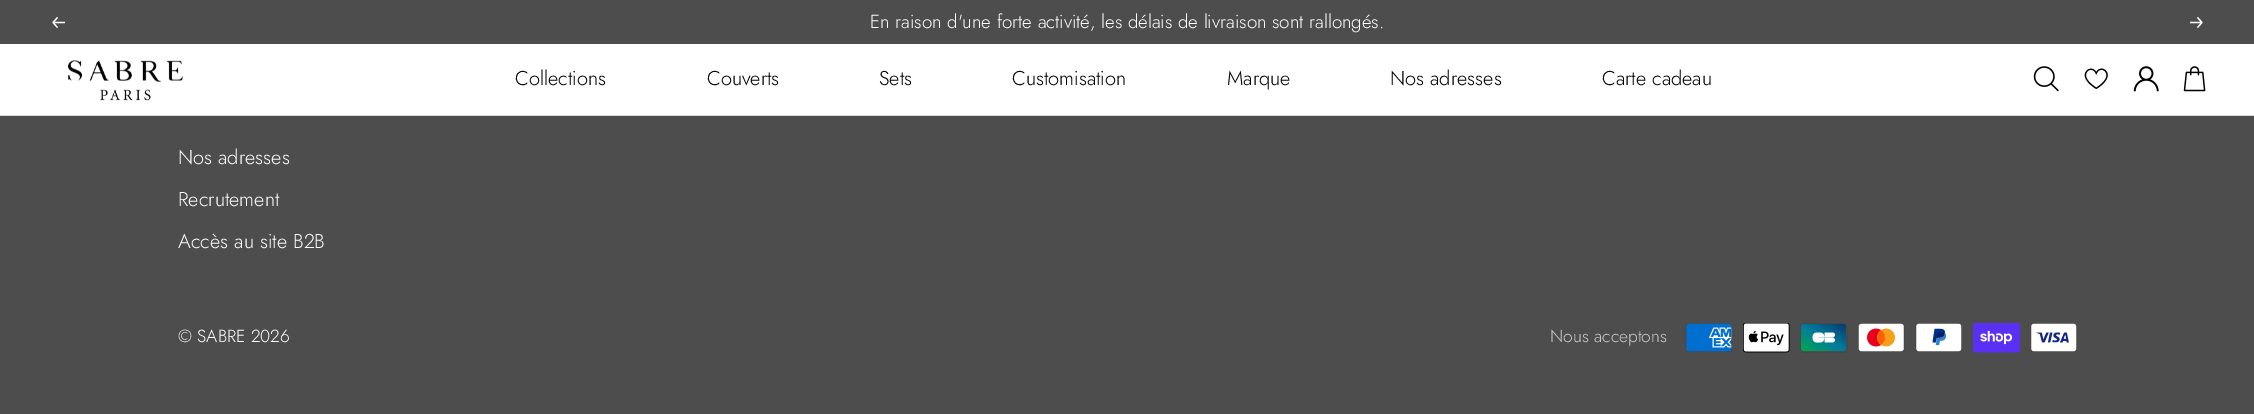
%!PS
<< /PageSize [2254 414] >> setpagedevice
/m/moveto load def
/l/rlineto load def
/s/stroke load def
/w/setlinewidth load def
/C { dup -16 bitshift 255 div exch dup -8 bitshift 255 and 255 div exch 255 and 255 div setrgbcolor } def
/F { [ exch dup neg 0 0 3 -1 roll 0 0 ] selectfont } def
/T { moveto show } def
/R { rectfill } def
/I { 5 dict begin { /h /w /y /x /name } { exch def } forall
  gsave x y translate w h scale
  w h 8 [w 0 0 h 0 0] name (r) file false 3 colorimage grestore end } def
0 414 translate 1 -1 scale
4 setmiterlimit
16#4E4D4D C
0 0 2254 414 R
16#FFFFFF C
1.2 w
65 22.5 m -12 0 l 53 22.5 m 4.5 5 l 53 22.5 m 4.5 -5 l s
/Jost-Light 18.75 F
(En raison d'une forte activité, les délais de livraison sont rallongés.) 870 28 T
2190 22.5 m 12 0 l 2202 22.5 m -4.5 5 l 2202 22.5 m -4.5 -5 l s
16#D9D9D9 C
0 115 2254 1 R
16#FFFFFF C
0 44 2254 71 R
(1.rgb) 67 60 116 41 I
/Jost-Light 20 F
16#000000 C
(Collections) 515 85 T
(Couverts) 707 85 T
(Sets) 879 85 T
(Customisation) 1012 85 T
(Marque) 1227 85 T
(Nos adresses) 1390 85 T
(Carte cadeau) 1602 85 T
(2.rgb) 2033 66 26 26 I
(3.rgb) 2084 68 24 21 I
(4.rgb) 2133 66 26 26 I
(5.rgb) 2183 66 23 26 I
16#FFFFFF C
(Nos adresses) 178 164 T
(Recrutement) 178 206 T
(Accès au site B2B) 178 248 T
/Jost-Light 17.5 F
(© SABRE 2026) 178 342 T
16#CACACA C
(Nous acceptons) 1550 342 T
(6.rgb) 1685 323 47 29 I
(7.rgb) 1743 323 47 30 I
(8.rgb) 1800 323 48 30 I
(9.rgb) 1858 323 47 29 I
(10.rgb) 1915 323 47 29 I
(11.rgb) 1973 323 47 30 I
(12.rgb) 2030 323 47 29 I
showpage
